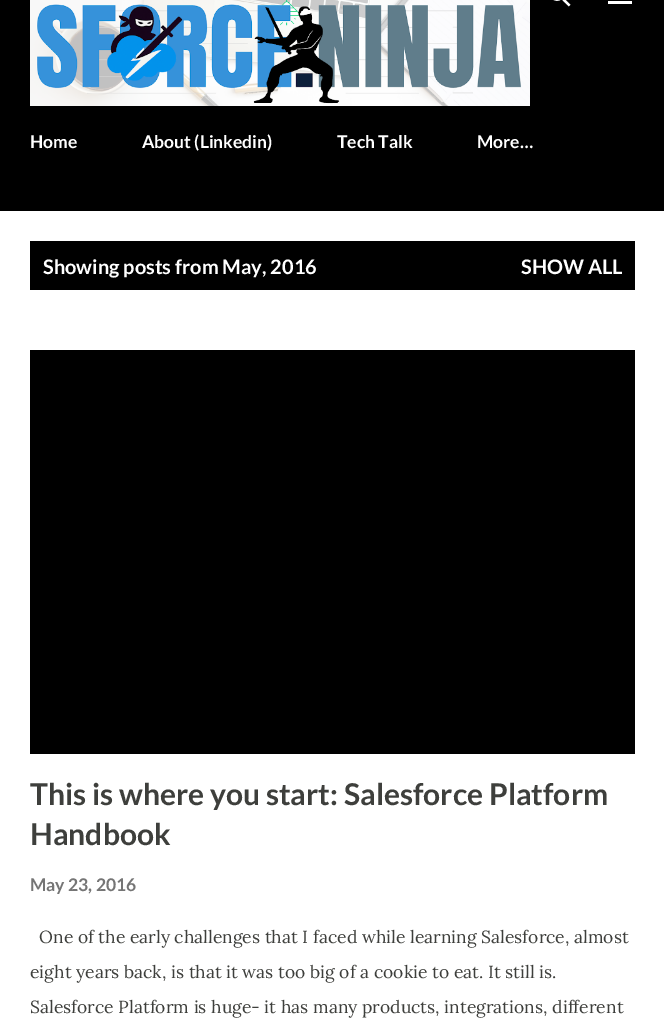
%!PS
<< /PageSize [664 1019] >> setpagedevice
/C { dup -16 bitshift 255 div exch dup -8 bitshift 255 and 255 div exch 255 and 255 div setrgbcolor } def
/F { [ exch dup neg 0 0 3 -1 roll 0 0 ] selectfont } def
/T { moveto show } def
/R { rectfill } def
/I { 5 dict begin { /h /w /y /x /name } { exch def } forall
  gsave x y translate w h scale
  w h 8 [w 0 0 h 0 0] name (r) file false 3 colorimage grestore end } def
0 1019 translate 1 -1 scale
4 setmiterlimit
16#FFFFFF C
0 0 664 1019 R
16#000000 C
0 0 664 211 R
(1.rgb) 30 0 500 106 I
(2.rgb) 553 0 18 7 I
16#FFFFFF C
608 1 24 3 R
/Lato-Bold 17.5 F
(Home) 30 148 T
(About \(Linkedin\)) 142 148 T
(Tech Talk) 337 148 T
(More…) 477 148 T
16#000000 C
30 241 605 49 R
/Lato-Bold 20 F
16#FFFFFF C
(Showing posts from May, 2016) 43 274 T
(SHOW ALL) 521 274 T
16#000000 C
30 350 605 404 R
/Lato-Bold 30 F
16#3E3F3C C
(This is where you start: Salesforce Platform) 30 805 T
(Handbook) 30 845 T
/Lato-Bold 17.5 F
16#757575 C
(May 23, 2016) 30 891 T
/Lora-Regular 17.5 F
16#3E3F3C C
(One of the early challenges that I faced while learning Salesforce, almost) 39 943 T
(eight years back, is that it was too big of a cookie to eat. It still is.) 30 978 T
(Salesforce Platform is huge- it has many products, integrations, different) 30 1013 T
showpage
